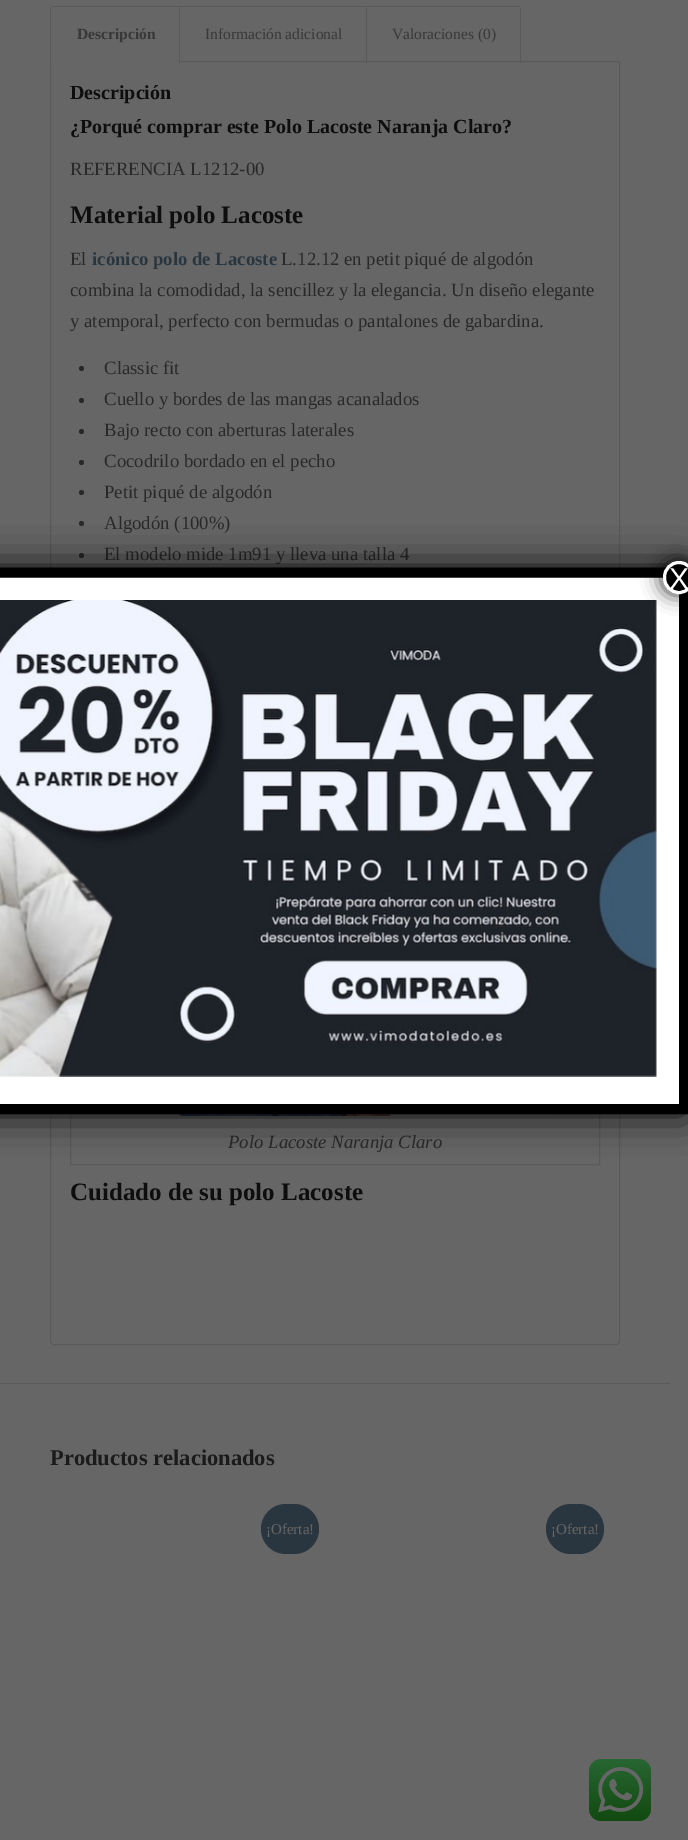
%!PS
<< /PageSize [688 1840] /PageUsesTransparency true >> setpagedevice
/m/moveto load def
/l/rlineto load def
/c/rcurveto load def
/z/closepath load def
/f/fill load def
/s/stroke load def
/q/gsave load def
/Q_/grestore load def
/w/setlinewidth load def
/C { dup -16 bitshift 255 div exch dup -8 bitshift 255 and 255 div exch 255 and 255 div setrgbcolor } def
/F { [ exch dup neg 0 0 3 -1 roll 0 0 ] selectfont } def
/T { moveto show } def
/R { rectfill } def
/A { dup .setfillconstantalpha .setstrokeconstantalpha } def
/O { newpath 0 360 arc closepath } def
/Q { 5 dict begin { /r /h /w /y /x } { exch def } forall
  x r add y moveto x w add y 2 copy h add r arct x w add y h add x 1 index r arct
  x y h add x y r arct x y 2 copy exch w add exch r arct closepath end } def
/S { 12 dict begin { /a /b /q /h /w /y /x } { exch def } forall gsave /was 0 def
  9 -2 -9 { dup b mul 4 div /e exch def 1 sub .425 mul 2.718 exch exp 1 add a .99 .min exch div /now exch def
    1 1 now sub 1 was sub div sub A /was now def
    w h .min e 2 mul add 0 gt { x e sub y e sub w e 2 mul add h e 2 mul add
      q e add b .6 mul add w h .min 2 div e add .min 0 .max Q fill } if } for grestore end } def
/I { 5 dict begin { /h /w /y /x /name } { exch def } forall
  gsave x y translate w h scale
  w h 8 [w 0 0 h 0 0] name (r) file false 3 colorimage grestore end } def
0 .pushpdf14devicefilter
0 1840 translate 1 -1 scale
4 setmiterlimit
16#666666 C
0 0 688 1840 R
16#5A5A5A C
50.5 61.5 m 569 0 l 0 1279.5 l 0 2 -1.5 3.5 -3.5 3.5 c -562 0 l -2 0 -3.5 -1.5 -3.5 -3.5 c z s
16#666666 C
50 61 129 2 R
16#5A5A5A C
51 6 317 1 R
179 6 1 57 R
50 8 1 55 R
/LiberationSerif-Bold 15.5 F
16#383838 C
(Descripción) 77 39 T
16#5A5A5A C
366 6 1 57 R
/LiberationSerif-Regular 15.5 F
16#383838 C
(Información adicional) 205 39 T
16#5A5A5A C
366 6 154 1 R
520 8 1 55 R
16#383838 C
(Valoraciones \(0\)) 392 39 T
/LiberationSerif-Bold 20 F
16#0E0E0E C
(Descripción) 70 99 T
(¿Porqué comprar este Polo Lacoste Naranja Claro?) 70 133 T
/LiberationSerif-Regular 18.75 F
16#292929 C
(REFERENCIA L1212-00) 70 175 T
/LiberationSerif-Bold 25 F
16#0E0E0E C
(Material polo Lacoste) 70 223 T
/LiberationSerif-Regular 18.75 F
16#292929 C
(El) 70 265 T
/LiberationSerif-Bold 18.75 F
16#293640 C
(icónico polo de Lacoste) 92 265 T
/LiberationSerif-Regular 18.75 F
16#292929 C
(L.12.12 en petit piqué de algodón) 281 265 T
(combina la comodidad, la sencillez y la elegancia. Un diseño elegante) 70 296 T
(y atemporal, perfecto con bermudas o pantalones de gabardina.) 70 327 T
81.5 368.5 2.5 O f
(Classic fit) 104 374 T
81.5 400.5 2.5 O f
(Cuello y bordes de las mangas acanalados) 104 405 T
81.5 431.5 2.5 O f
(Bajo recto con aberturas laterales) 104 436 T
81.5 462.5 2.5 O f
(Cocodrilo bordado en el pecho) 104 467 T
81.5 492.5 2.5 O f
(Petit piqué de algodón) 104 498 T
81.5 523.5 2.5 O f
(Algodón \(100%\)) 104 529 T
81.5 555.5 2.5 O f
(El modelo mide 1m91 y lleva una talla 4) 104 560 T
16#5A5A5A C
70.5 595.5 529 569 rectstroke
(1.rgb) 78 1114 515 2 I
/LiberationSerif-Italic 18.75 F
16#292929 C
(Polo Lacoste Naranja Claro) 228 1148 T
/LiberationSerif-Bold 25 F
16#0E0E0E C
(Cuidado de su polo Lacoste) 70 1200 T
16#5A5A5A C
0 1383 670 1 R
/LiberationSerif-Bold 22.5 F
16#1B1B1B C
(Productos relacionados) 50 1465 T
16#293640 C
261 1504 58 50 25 Q f
/LiberationSerif-Regular 15 F
16#666666 C
(¡Oferta!) 266 1534 T
16#293640 C
546 1504 58 50 25 Q f
16#666666 C
(¡Oferta!) 551 1534 T
16#020202 C
-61 568 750 546 4 19 1 S
16#FFFFFF C
0 577 679 527 R
16#000000 C
10 w
-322.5 572.5 m 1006.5 0 l 0 536.5 l -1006.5 0 l z s
(2.rgb) 0 600 657 477 I
16#020202 C
661 560 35 35 17.5 9.5 .75 S
16#000000 C
664.5 562.5 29 30 14.5 Q q f Q_
16#FFFFFF C
3 w
s
/LiberationSans-Regular 30 F
(X) 669 589 T
(3.rgb) 589 1759 62 62 I
.poppdf14devicefilter showpage
